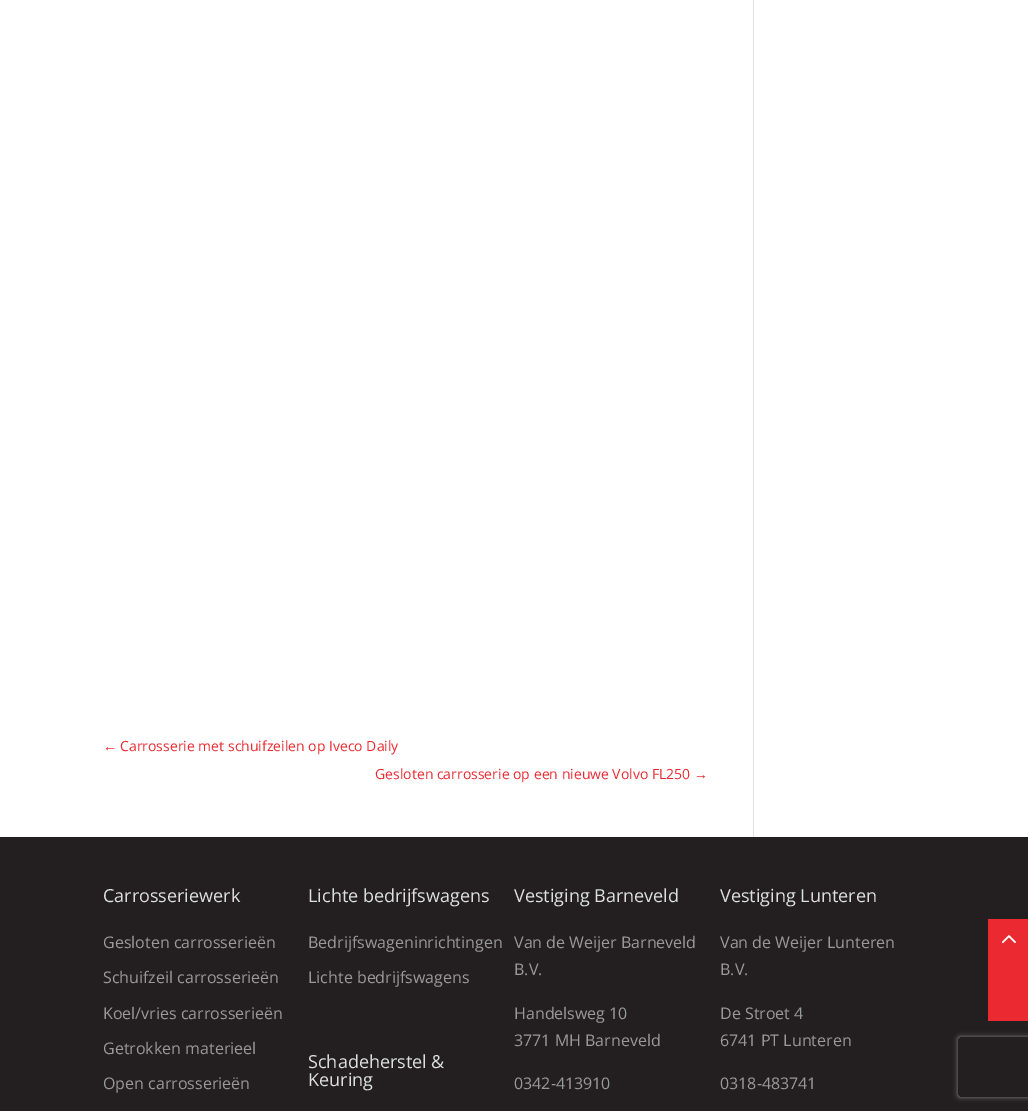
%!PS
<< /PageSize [1028 1111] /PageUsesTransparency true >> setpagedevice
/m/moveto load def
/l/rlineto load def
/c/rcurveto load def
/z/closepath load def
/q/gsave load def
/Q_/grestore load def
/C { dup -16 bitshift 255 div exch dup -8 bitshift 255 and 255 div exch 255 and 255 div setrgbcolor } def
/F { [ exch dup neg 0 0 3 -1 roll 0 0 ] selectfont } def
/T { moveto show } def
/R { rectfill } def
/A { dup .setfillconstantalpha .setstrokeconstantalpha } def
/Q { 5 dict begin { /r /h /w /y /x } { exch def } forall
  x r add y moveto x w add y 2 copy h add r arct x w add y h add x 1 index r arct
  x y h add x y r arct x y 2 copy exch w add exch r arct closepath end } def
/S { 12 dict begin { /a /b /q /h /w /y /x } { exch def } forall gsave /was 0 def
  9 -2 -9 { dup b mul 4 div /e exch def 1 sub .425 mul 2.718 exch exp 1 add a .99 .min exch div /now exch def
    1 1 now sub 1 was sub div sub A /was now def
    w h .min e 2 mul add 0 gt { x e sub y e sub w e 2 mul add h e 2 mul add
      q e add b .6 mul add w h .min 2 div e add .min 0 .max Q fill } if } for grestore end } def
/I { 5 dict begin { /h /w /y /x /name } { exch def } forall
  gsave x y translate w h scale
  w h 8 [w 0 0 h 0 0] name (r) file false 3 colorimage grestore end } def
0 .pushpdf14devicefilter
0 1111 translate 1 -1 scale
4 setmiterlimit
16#FFFFFF C
0 0 1028 1111 R
/LiberationSans-Regular 14 F
16#EA2A30 C
(←) 103 751 T
/OpenSans-Regular 14 F
(Carrosserie met schuifzeilen op Iveco Daily) 120 751 T
(Gesloten carrosserie op een nieuwe Volvo FL250) 375 779 T
/LiberationSans-Regular 14 F
(→) 694 779 T
16#E2E2E2 C
753 0 1 837 R
16#231F20 C
0 837 1028 274 R
/OpenSans-Regular 18 F
16#DCE0DF C
(Carrosseriewerk) 103 902 T
/OpenSans-Regular 16 F
16#999999 C
(Gesloten carrosserieën) 103 948 T
(Schuifzeil carrosserieën) 103 983 T
(Koel/vries carrosserieën) 103 1019 T
(Getrokken materieel) 103 1054 T
(Open carrosserieën) 103 1089 T
/OpenSans-Regular 18 F
16#DCE0DF C
(Lichte bedrijfswagens) 308 902 T
/OpenSans-Regular 16 F
16#999999 C
(Bedrijfswageninrichtingen) 308 948 T
(Lichte bedrijfswagens) 308 983 T
/OpenSans-Regular 18 F
16#DCE0DF C
(Schadeherstel &) 308 1068 T
(Keuring) 308 1086 T
(Vestiging Barneveld) 514 902 T
/OpenSans-Regular 16 F
16#999999 C
(Van de Weijer Barneveld) 514 948 T
(B.V.) 514 975 T
(Handelsweg 10) 514 1019 T
(3771 MH Barneveld) 514 1046 T
(0342-413910) 514 1089 T
/OpenSans-Regular 18 F
16#DCE0DF C
(Vestiging Lunteren) 720 902 T
/OpenSans-Regular 16 F
16#999999 C
(Van de Weijer Lunteren) 720 948 T
(B.V.) 720 975 T
(De Stroet 4) 720 1019 T
(6741 PT Lunteren) 720 1046 T
(0318-483741) 720 1089 T
16#EA2A30 C
988 919 40 102 R
(1.rgb) 1001 935 15 9 I
q
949 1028 m 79 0 l 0 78 l -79 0 l z 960 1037 m 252 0 l 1 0 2 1 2 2 c 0 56 l 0 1 -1 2 -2 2 c -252 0 l -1 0 -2 -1 -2 -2 c 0 -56 l 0 -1 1 -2 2 -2 c z eoclip newpath
16#808080 C
958 1037 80 60 2 2.5 1 S
Q_
.poppdf14devicefilter showpage
